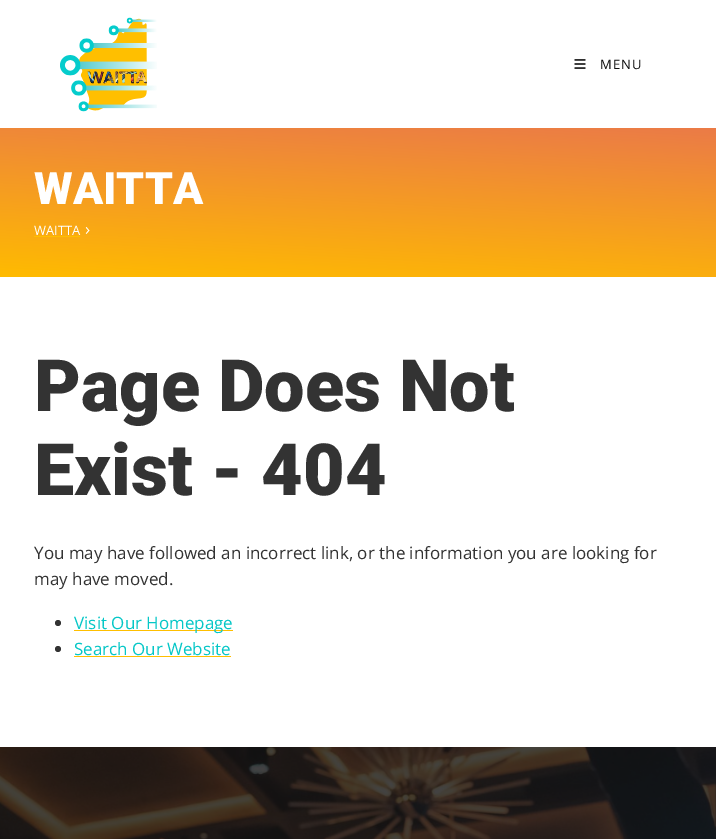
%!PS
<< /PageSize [716 839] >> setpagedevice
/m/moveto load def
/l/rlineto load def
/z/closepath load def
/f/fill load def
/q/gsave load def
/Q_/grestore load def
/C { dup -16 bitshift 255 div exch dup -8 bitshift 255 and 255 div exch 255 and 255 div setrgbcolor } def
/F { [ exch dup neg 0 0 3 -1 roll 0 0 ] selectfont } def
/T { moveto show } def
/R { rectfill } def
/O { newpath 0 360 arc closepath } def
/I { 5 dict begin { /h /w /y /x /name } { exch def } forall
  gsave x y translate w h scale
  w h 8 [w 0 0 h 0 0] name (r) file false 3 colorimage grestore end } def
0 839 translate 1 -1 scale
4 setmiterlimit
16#FFFFFF C
0 0 716 839 R
(1.rgb) 60 17 97 95 I
(2.rgb) 574 59 12 10 I
/OpenSans-Regular 13 F
16#0F0F0F C
600 69 m 1 0 (MENU) ashow
q 0 128 m 716 0 l 0 149 l -716 0 l z clip newpath
<< /ShadingType 2 /ColorSpace /DeviceRGB /Coords [353 296 363 109] /Extend [true true] /Function << /FunctionType 2 /Domain [0 1] /C0 [1 .733 0] /C1 [.922 .482 .278] /N 1 >> >> shfill Q_
/Roboto-Black 44.5 F
16#FFFFFF C
(WAITTA) 34 204 T
/OpenSans-Regular 13 F
(WAITTA) 34 235 T
16#FFBF00 C
34 236 46 1 R
/OpenSans-Regular 17 F
16#FFFFFF C
(›) 85 235 T
/Roboto-Black 72 F
16#333333 C
(Page Does Not) 34 411 T
(Exist - 404) 34 495 T
/OpenSans-Regular 17 F
(You may have followed an incorrect link, or the information you are looking for) 34 559 T
(may have moved.) 34 585 T
58 623 3 O f
16#FFBF00 C
74 630 159 1 R
16#05C7C7 C
(Visit Our Homepage) 74 629 T
16#333333 C
58 649 3 O f
16#05C7C7 C
(Search Our Website) 74 655 T
16#FFBF00 C
74 656 157 1 R
(3.rgb) 0 747 716 92 I
showpage
